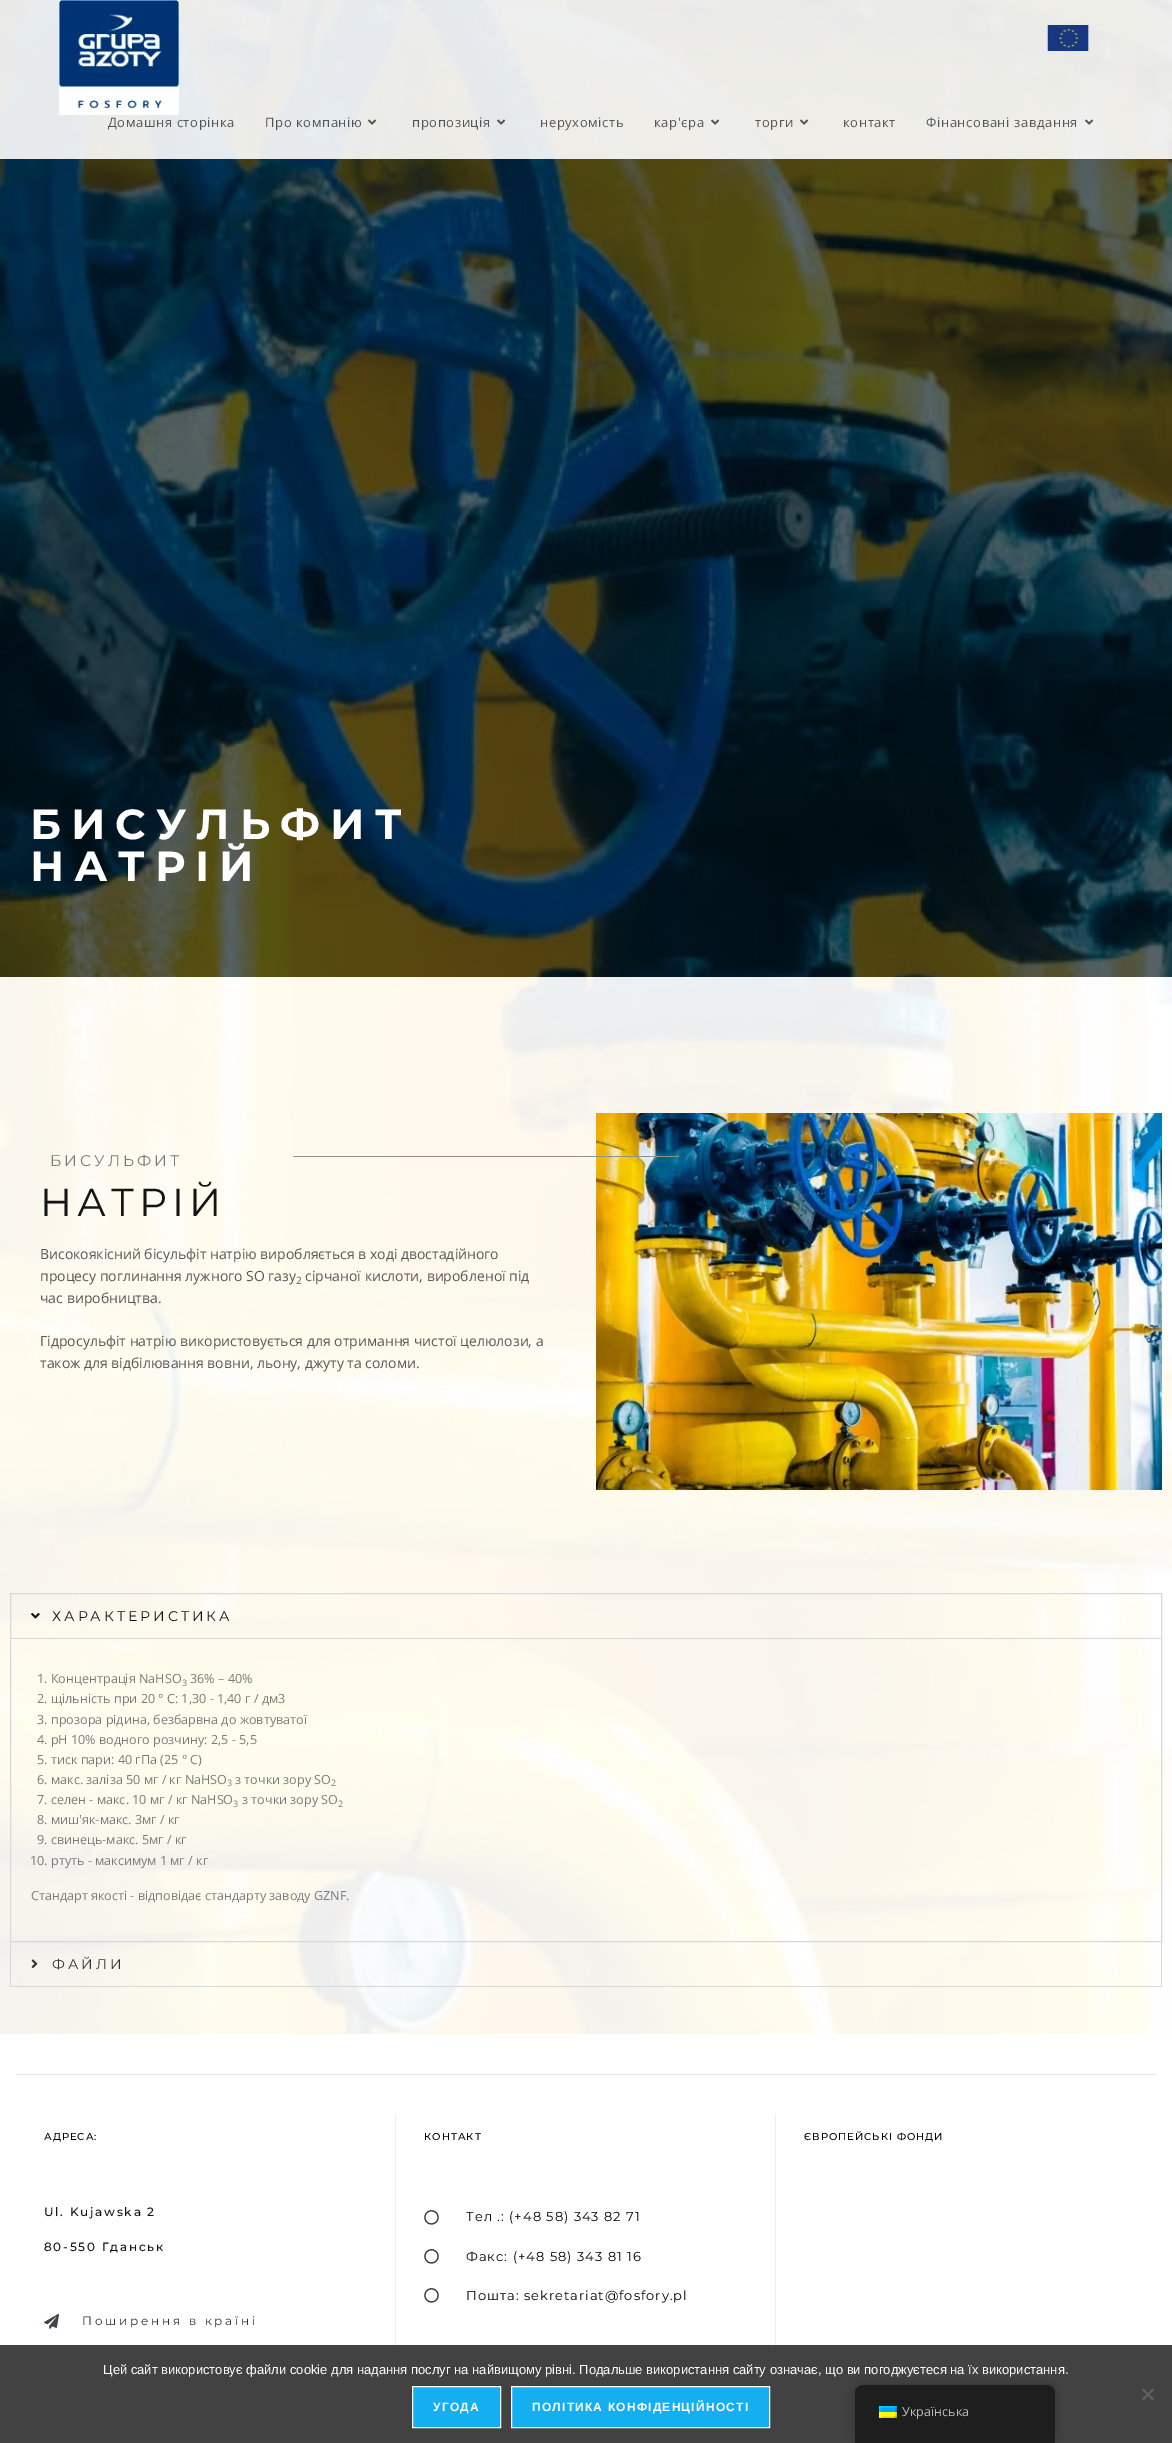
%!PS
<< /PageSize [1172 2443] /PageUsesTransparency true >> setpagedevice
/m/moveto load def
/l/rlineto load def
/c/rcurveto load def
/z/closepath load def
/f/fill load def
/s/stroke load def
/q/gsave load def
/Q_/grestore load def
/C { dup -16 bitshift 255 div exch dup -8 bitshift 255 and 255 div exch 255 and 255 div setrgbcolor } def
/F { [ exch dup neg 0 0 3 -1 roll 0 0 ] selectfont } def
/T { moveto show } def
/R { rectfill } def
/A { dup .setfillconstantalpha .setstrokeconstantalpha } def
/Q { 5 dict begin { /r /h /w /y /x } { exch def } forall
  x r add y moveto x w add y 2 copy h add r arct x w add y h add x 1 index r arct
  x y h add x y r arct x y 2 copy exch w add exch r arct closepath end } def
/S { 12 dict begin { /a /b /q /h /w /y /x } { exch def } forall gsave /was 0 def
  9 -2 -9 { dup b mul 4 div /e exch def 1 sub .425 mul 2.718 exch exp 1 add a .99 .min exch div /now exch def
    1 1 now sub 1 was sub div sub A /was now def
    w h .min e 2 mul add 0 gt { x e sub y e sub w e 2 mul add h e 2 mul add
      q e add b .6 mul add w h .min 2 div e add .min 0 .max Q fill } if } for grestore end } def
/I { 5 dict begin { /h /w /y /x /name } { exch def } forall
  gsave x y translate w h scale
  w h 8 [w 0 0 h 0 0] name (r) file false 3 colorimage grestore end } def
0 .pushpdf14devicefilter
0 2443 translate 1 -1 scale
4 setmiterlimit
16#FFFFFF C
0 0 1172 2443 R
(8.rgb) 0 0 1172 977 I
0.9 A
0 0 1172 159 R
1 A
(1.rgb) 59 0 120 115 I
(2.rgb) 1047 25 42 26 I
/OpenSans-Regular 13 F
16#555555 C
108 127 m .6 0 (Домашня сторінка) ashow
265 127 m .6 0 (Про компанію) ashow
(3.rgb) 368 119 9 6 I
412 127 m .6 0 (пропозиція) ashow
(4.rgb) 497 119 9 6 I
540 127 m .6 0 (нерухомість) ashow
654 127 m .6 0 (кар'єра) ashow
(5.rgb) 711 119 9 6 I
755 127 m .6 0 (торги) ashow
(6.rgb) 800 119 9 6 I
843 127 m .6 0 (контакт) ashow
926 127 m .6 0 (Фінансовані завдання) ashow
(7.rgb) 1085 119 9 6 I
/Montserrat-Bold 42 F
16#FFFFFF C
30 839 m 10 0 (БИСУЛЬФИТ) ashow
30 881 m 10 0 (НАТРІЙ) ashow
(9.rgb) 0 977 1172 569 I
/Montserrat-Regular 15.5 F
16#7A7A7A C
50 1166 m 3 0 (БИСУЛЬФИТ) ashow
(10.rgb) 596 1113 566 377 I
16#919191 C
293 1156 386 1 R
/Montserrat-Regular 39 F
16#141414 C
40 1216 m 5 0 (НАТРІЙ) ashow
/OpenSans-Regular 14 F
16#5D5455 C
(Високоякісний бісульфіт натрію виробляється в ході двостадійного) 40 1259 T
(процесу поглинання лужного SO газу) 40 1281 T
/OpenSans-Regular 10 F
(2) 296 1284 T
/OpenSans-Regular 14 F
(сірчаної кислоти, виробленої під) 305 1281 T
(час виробництва.) 40 1303 T
(Гідросульфіт натрію використовується для отримання чистої целюлози, а) 40 1346 T
(також для відбілювання вовни, льону, джуту та соломи.) 40 1368 T
(11.rgb) 0 1546 1172 488 I
16#D5D8DC C
10.5 1593.5 1151 348 rectstroke
(12.rgb) 31 1613 9 6 I
/Montserrat-Regular 14 F
16#141414 C
52 1621 m 3 0 (ХАРАКТЕРИСТИКА) ashow
16#D5D8DC C
11 1638 1150 1 R
/OpenSans-Regular 12.6 F
16#7A7A7A C
(1. Концентрація NaHSO) 37 1683 T
/OpenSans-Regular 9 F
(3) 182 1686 T
/OpenSans-Regular 12.6 F
(36% – 40%) 190 1683 T
(2. щільність при 20 ° С: 1,30 - 1,40 г / дм3) 37 1703 T
(3. прозора рідина, безбарвна до жовтуватої) 37 1724 T
(4. рН 10% водного розчину: 2,5 - 5,5) 37 1744 T
(5. тиск пари: 40 гПа \(25 ° C\)) 37 1764 T
(6. макс. заліза 50 мг / кг NaHSO) 37 1784 T
/OpenSans-Regular 9 F
(3) 227 1786 T
/OpenSans-Regular 12.6 F
(з точки зору SO) 235 1784 T
/OpenSans-Regular 9 F
(2) 331 1786 T
/OpenSans-Regular 12.6 F
(7. селен - макс. 10 мг / кг NaHSO) 37 1804 T
/OpenSans-Regular 9 F
(3) 233 1807 T
/OpenSans-Regular 12.6 F
(з точки зору SO) 242 1804 T
/OpenSans-Regular 9 F
(2) 338 1807 T
/OpenSans-Regular 12.6 F
(8. миш'як-макс. 3мг / кг) 37 1824 T
(9. свинець-макс. 5мг / кг) 37 1844 T
(10. ртуть - максимум 1 мг / кг) 30 1865 T
(Стандарт якості - відповідає стандарту заводу GZNF.) 31 1900 T
16#D5D8DC C
1161 1942 1 45 R
10 1986 1152 1 R
10 1942 1 45 R
(13.rgb) 31 1959 7 10 I
/Montserrat-Regular 14 F
16#333333 C
52 1969 m 3 0 (ФАЙЛИ) ashow
16#E5E5E5 C
16 2074 1140 1 R
16#EEEEEE C
395 2115 1 230 R
/Montserrat-Medium 10 F
16#000000 C
44 2140 m 1 0 (АДРЕСА:) ashow
/Montserrat-Medium 12 F
16#141414 C
44 2216 m 1.75 0 (Ul. Kujawska 2) ashow
44 2251 m 1.75 0 (80-550 Гданськ) ashow
(14.rgb) 44 2313 15 16 I
/Montserrat-Regular 12 F
16#333333 C
82 2325 m 2.75 0 (Поширення в країні) ashow
16#EEEEEE C
775 2115 1 230 R
/Montserrat-Medium 10 F
16#000000 C
424 2140 m 1 0 (КОНТАКТ) ashow
(15.rgb) 424 2210 15 15 I
/Montserrat-Regular 13 F
466 2221 m 1 0 (Тел .: \(+48 58\) 343 82 71) ashow
(15.rgb) 424 2249 15 15 I
466 2261 m 1 0 (Факс: \(+48 58\) 343 81 16) ashow
(15.rgb) 424 2288 15 15 I
466 2300 m 1 0 (Пошта: sekretariat@fosfory.pl) ashow
/Montserrat-Medium 10 F
804 2140 m 1 0 (ЄВРОПЕЙСЬКІ ФОНДИ) ashow
16#424242 C
0 2345 1172 98 R
/LiberationSans-Regular 13 F
16#FFFFFF C
(Цей сайт використовує файли cookie для надання послуг на найвищому рівні. Подальше використання сайту означає, що ви погоджуєтеся на їх використання.) 103 2374 T
16#616161 C
1152.5 2388.5 m 1.5 1.5 l -10.5 10.5 l -1.5 -1.5 l z f
1142 2390 m 1.5 -1.5 l 10.5 10.5 l -1.5 1.5 l z f
16#13AFF0 C
412.5 2386.5 m 88 0 l 0 41 l -88 0 l z q f Q_
16#FFFFFF C
s
/LiberationSans-Bold 12 F
433 2411 m 1.2 0 (УГОДА) ashow
16#13AFF0 C
511.5 2386.5 m 258 0 l 0 41 l -258 0 l z q f Q_
16#FFFFFF C
s
532 2411 m 1.2 0 (ПОЛІТИКА КОНФІДЕНЦІЙНОСТІ) ashow
16#000000 C
855 2385 200 58 8 4 .25 S
16#1E1E1E C
863 2385 m 184 0 l 4.5 0 8 3.5 8 8 c 0 50 l -200 0 l 0 -50 l 0 -4.5 3.5 -8 8 -8 c z f
(16.rgb) 879 2406 18 12 I
/OpenSans-Regular 12.6 F
16#BDBDBD C
(Українська) 902 2416 T
.poppdf14devicefilter showpage
